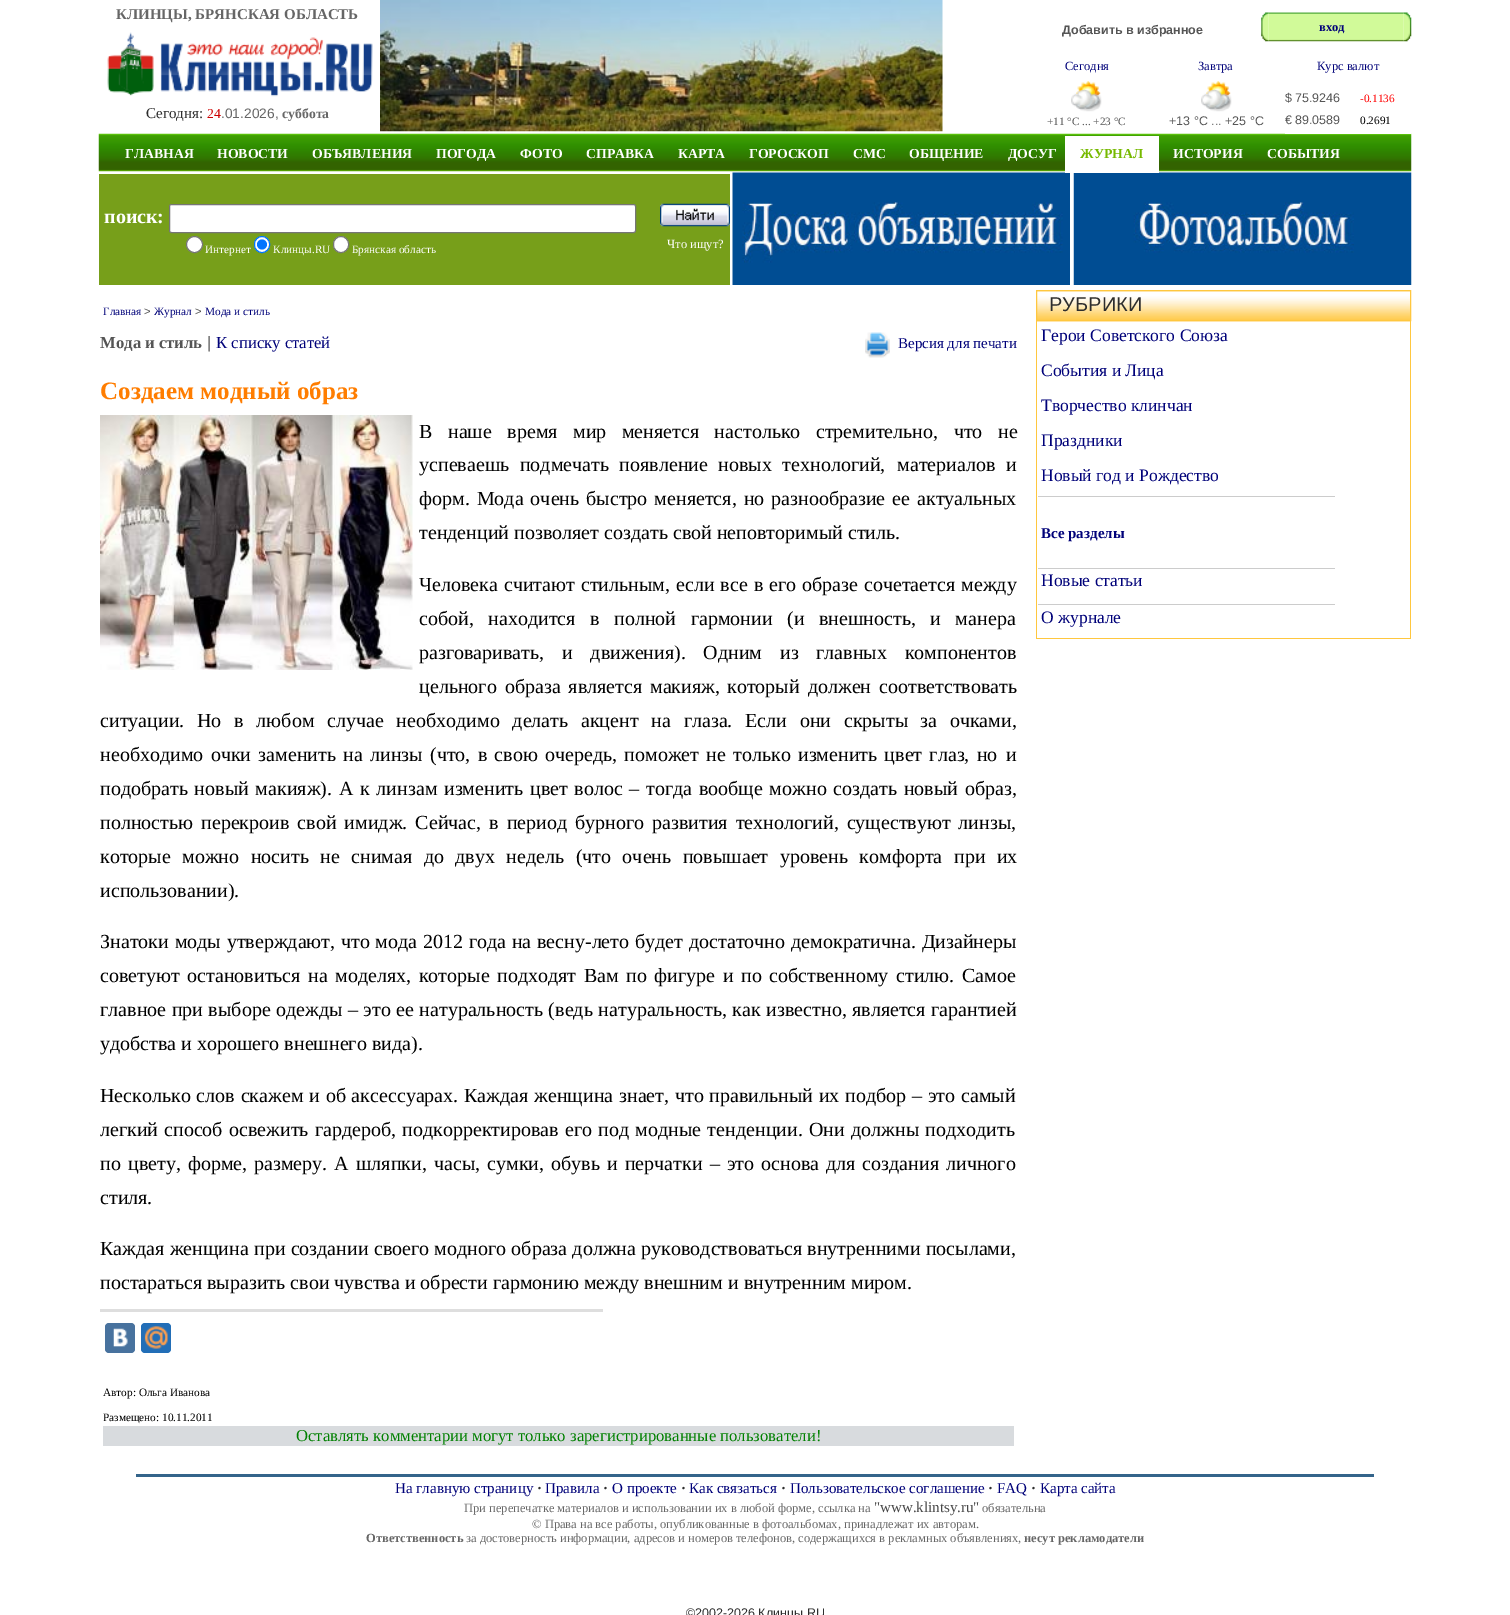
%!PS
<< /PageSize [1510 1615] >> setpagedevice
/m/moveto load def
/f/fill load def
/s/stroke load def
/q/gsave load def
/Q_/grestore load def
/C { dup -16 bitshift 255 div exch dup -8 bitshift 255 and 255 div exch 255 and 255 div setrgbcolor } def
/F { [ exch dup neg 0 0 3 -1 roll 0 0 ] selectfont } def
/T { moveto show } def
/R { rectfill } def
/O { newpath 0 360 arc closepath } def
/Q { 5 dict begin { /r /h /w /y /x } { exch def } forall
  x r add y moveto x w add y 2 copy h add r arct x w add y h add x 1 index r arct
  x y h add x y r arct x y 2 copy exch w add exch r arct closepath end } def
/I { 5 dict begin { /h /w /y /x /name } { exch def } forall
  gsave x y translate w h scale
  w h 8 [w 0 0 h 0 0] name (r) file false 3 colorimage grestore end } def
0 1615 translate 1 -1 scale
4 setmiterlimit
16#FFFFFF C
0 0 1510 1615 R
/LiberationSerif-Bold 15 F
16#666666 C
(КЛИНЦЫ, БРЯНСКАЯ ОБЛАСТЬ) 116 19 T
(1.rgb) 107 32 266 65 I
/LiberationSerif-Regular 15 F
16#2E2E2E C
(Сегодня:) 146 118 T
/LiberationSerif-Regular 13.75 F
16#CC0000 C
(24) 207 118 T
/LiberationSans-Regular 13.75 F
16#666666 C
(.01.2026,) 221 118 T
/LiberationSerif-Bold 13.75 F
(суббота) 282 118 T
(2.rgb) 380 0 563 132 I
/LiberationSans-Bold 12.5 F
16#555555 C
(Добавить в избранное) 1062 34 T
(3.rgb) 1261 12 8 30 I
(4.rgb) 1268 12 136 30 I
/LiberationSerif-Bold 12.5 F
16#000179 C
(вход) 1319 31 T
(5.rgb) 1403 12 9 30 I
/LiberationSerif-Regular 12.5 F
(Сегодня) 1065 70 T
(Завтра) 1198 70 T
(Курс валют) 1317 70 T
(6.rgb) 1071 81 31 31 I
/LiberationSerif-Regular 11.25 F
16#555555 C
(+11 °C ... +23 °C) 1047 125 T
(6.rgb) 1201 81 31 31 I
/LiberationSans-Regular 12.5 F
(+13 °C ... +25 °C) 1169 125 T
(7.rgb) 98 133 1314 39 I
16#FFFFFF C
1285 133 126 1 R
16#555555 C
($) 1285 102 T
(75.9246) 1295 102 T
/LiberationSerif-Regular 11.25 F
16#FF0000 C
(-0.1136) 1360 102 T
/LiberationSans-Regular 12.5 F
16#555555 C
(€) 1285 124 T
(89.0589) 1295 124 T
/LiberationSerif-Regular 11.25 F
16#000000 C
(0.2691) 1360 124 T
/LiberationSerif-Bold 13.75 F
16#FFFFFF C
(ГЛАВНАЯ) 125 158 T
(НОВОСТИ) 217 158 T
(ОБЪЯВЛЕНИЯ) 312 158 T
(ПОГОДА) 436 158 T
(ФОТО) 520 158 T
(СПРАВКА) 586 158 T
(КАРТА) 678 158 T
(ГОРОСКОП) 749 158 T
(СМС) 853 158 T
(ОБЩЕНИЕ) 909 158 T
(ДОСУГ) 1008 158 T
(9.rgb) 732 172 338 113 I
(10.rgb) 1073 172 339 113 I
1065 136 94 37 R
16#76B900 C
(ЖУРНАЛ) 1080 158 T
16#FFFFFF C
(ИСТОРИЯ) 1173 158 T
(СОБЫТИЯ) 1267 158 T
16#779F1A C
99 174 631 111 R
/LiberationSerif-Bold 20 F
16#FFFFFF C
(поиск:) 104 223 T
169.5 204.5 466 28 2 Q q f Q_
16#767676 C
s
(8.rgb) 660 203 70 24 I
16#FFFFFF C
194.5 244.5 8 O q f Q_
16#767676 C
s
/LiberationSerif-Regular 11.25 F
16#FFFFFF C
(Интернет) 205 253 T
254.5 236.5 15 16 7.5 Q q f Q_
16#0075FF C
s
262 244.5 5 O f
16#FFFFFF C
(Клинцы.RU) 273 253 T
333.5 236.5 15 16 7.5 Q q f Q_
16#767676 C
s
16#FFFFFF C
(Брянская область) 352 253 T
/LiberationSerif-Regular 12.5 F
(Что ищут?) 667 248 T
/LiberationSerif-Regular 11.25 F
16#000179 C
(Главная) 103 315 T
/LiberationSans-Regular 11.25 F
16#555555 C
(>) 144 315 T
/LiberationSerif-Regular 11.25 F
16#000179 C
(Журнал) 154 315 T
/LiberationSans-Regular 11.25 F
16#555555 C
(>) 195 315 T
/LiberationSerif-Regular 11.25 F
16#000179 C
(Мода и стиль) 205 315 T
/LiberationSerif-Bold 16.7 F
16#555555 C
(Мода и стиль) 100 348 T
/LiberationSans-Regular 16.7 F
(|) 207 348 T
/LiberationSerif-Regular 16.7 F
16#000179 C
(К списку статей) 216 348 T
(11.rgb) 865 332 25 26 I
/LiberationSerif-Regular 15 F
(Версия для печати) 898 348 T
/LiberationSerif-Bold 25 F
16#FF7D00 C
(Создаем модный образ) 100 399 T
(12.rgb) 100 415 313 255 I
/LiberationSerif-Regular 20 F
16#000000 C
419 438 m 10.5 0 32 (В наше время мир меняется настолько стремительно, что не) widthshow
419 471 m 5.5 0 32 (успеваешь подмечать появление новых технологий,) widthshow
897 471 m 5.5 0 32 (материалов и) widthshow
419 505 m 2 0 32 (форм. Мода очень быстро меняется, но разнообразие ее актуальных) widthshow
(тенденций позволяет создать свой неповторимый стиль.) 419 539 T
419 591 m 1 0 32 (Человека считают стильным, если все в его образе сочетается между) widthshow
419 625 m 9.5 0 32 (собой, находится в полной гармонии) widthshow
787 625 m 9.5 0 32 (\(и внешность, и манера) widthshow
419 659 m 12.75 0 32 (разговаривать, и движения\). Одним из главных компонентов) widthshow
419 693 m 3 0 32 (цельного образа является макияж,) widthshow
727 693 m 3 0 32 (который должен соответствовать) widthshow
100 727 m 7.75 0 32 (ситуации. Но в любом случае необходимо делать акцент на глаза. Если они скрыты) widthshow
920 727 m 7.75 0 32 (за очками,) widthshow
100 761 m 2.25 0 32 (необходимо очки заменить на линзы \(что, в свою очередь, поможет не только изменить цвет глаз, но) widthshow
(и) 1006 761 T
100 795 m 1.7 0 32 (подобрать новый макияж\). А к линзам изменить цвет волос – тогда вообще можно создать новый образ,) widthshow
(полностью) 100 829 T
201 829 m 3 0 32 (перекроив свой имидж. Сейчас, в период бурного развития технологий, существуют линзы,) widthshow
(которые) 100 863 T
182 863 m 6.5 0 32 (можно носить не) widthshow
351 863 m 6.5 0 32 (снимая до двух недель \(что очень повышает уровень комфорта при их) widthshow
(использовании\).) 100 897 T
100 948 m .75 0 32 (Знатоки моды утверждают, что мода 2012 года на весну-лето) widthshow
635 948 m 1 0 32 (будет достаточно демократична. Дизайнеры) widthshow
100 982 m 2.6 0 32 (советуют остановиться) widthshow
308 982 m 2.6 0 32 (на моделях, которые подходят Вам по фигуре и по собственному стилю. Самое) widthshow
100 1016 m .5 0 32 (главное при выборе одежды – это) widthshow
396 1016 m .5 0 32 (ее натуральность \(ведь натуральность, как известно, является гарантией) widthshow
(удобства и хорошего внешнего вида\).) 100 1050 T
100 1102 m .75 0 32 (Несколько слов скажем и об аксессуарах. Каждая женщина знает, что правильный их подбор – это самый) widthshow
(легкий) 100 1136 T
164 1136 m 1.25 0 32 (способ освежить гардероб, подкорректировав его под модные тенденции. Они должны подходить) widthshow
100 1170 m 2.1 0 32 (по цвету, форме,) widthshow
254 1170 m 2.1 0 32 (размеру. А шляпки, часы, сумки, обувь и перчатки – это основа для создания личного) widthshow
(стиля.) 100 1204 T
100 1255 m .25 0 32 (Каждая женщина при создании своего модного образа должна руководствоваться внутренними посылами,) widthshow
(постараться выразить свои чувства и обрести гармонию между внешним и внутренним миром.) 100 1289 T
16#DEDEDE C
100 1309 503 3 R
16#48729E C
105 1323 30 30 4 Q f
(13.rgb) 113 1328 15 19 I
16#226EB7 C
141 1323 30 30 4 Q f
(14.rgb) 144 1326 24 23 I
/LiberationSerif-Regular 11.25 F
16#000000 C
(Автор: Ольга Иванова) 103 1396 T
(Размещено: 10.11.2011) 103 1421 T
16#D8DBDE C
103 1426 911 20 R
/LiberationSerif-Regular 16.7 F
16#008000 C
(Оставлять комментарии могут только зарегистрированные пользователи!) 296 1441 T
(15.rgb) 1037 291 375 31 I
16#FFC73F C
1036.5 290.5 374 30 rectstroke
/LiberationSans-Regular 20 F
16#2E2E2E C
(РУБРИКИ) 1049 311 T
16#FFC73F C
1410 321 1 318 R
1036 638 375 1 R
1036 321 1 318 R
/LiberationSerif-Regular 17.5 F
16#000179 C
(Герои Советского Союза) 1041 341 T
(События и Лица) 1041 376 T
(Творчество клинчан) 1041 411 T
(Праздники) 1041 446 T
(Новый год и Рождество) 1041 481 T
16#CCCCCC C
1038 496 297 1 R
/LiberationSerif-Bold 15 F
16#000179 C
(Все разделы) 1041 538 T
16#CCCCCC C
1038 568 297 1 R
/LiberationSerif-Regular 17.5 F
16#000179 C
(Новые статьи) 1041 586 T
16#CCCCCC C
1038 604 297 1 R
16#000179 C
(О журнале) 1041 623 T
16#34648A C
136 1474 1238 3 R
/LiberationSerif-Regular 15 F
16#000179 C
(На главную страницу) 395 1493 T
/LiberationSerif-Bold 15 F
16#2E2E2E C
(·) 537 1493 T
/LiberationSerif-Regular 15 F
16#000179 C
(Правила) 545 1493 T
/LiberationSerif-Bold 15 F
16#2E2E2E C
(·) 603 1493 T
/LiberationSerif-Regular 15 F
16#000179 C
(О проекте) 612 1493 T
/LiberationSerif-Bold 15 F
16#2E2E2E C
(·) 681 1493 T
/LiberationSerif-Regular 15 F
16#000179 C
(Как связаться) 689 1493 T
/LiberationSerif-Bold 15 F
16#2E2E2E C
(·) 781 1493 T
/LiberationSerif-Regular 15 F
16#000179 C
(Пользовательское соглашение) 790 1493 T
/LiberationSerif-Bold 15 F
16#2E2E2E C
(·) 988 1493 T
/LiberationSerif-Regular 15 F
16#000179 C
(FAQ) 997 1493 T
/LiberationSerif-Bold 15 F
16#2E2E2E C
(·) 1031 1493 T
/LiberationSerif-Regular 15 F
16#000179 C
(Карта сайта) 1040 1493 T
/LiberationSerif-Regular 12.5 F
16#666666 C
(При перепечатке материалов и использовании их в любой форме, ссылка на) 464 1512 T
/LiberationSerif-Regular 15 F
16#484848 C
("www.klintsy.ru") 874 1512 T
/LiberationSerif-Regular 12.5 F
16#666666 C
(обязательна) 982 1512 T
(© Права на все работы, опубликованные в фотоальбомах, принадлежат их авторам.) 532 1528 T
/LiberationSerif-Bold 12.5 F
(Ответственность) 366 1542 T
/LiberationSerif-Regular 12.5 F
(за достоверность информации, адресов и номеров телефонов, содержащихся в рекламных объявлениях,) 466 1542 T
/LiberationSerif-Bold 12.5 F
(несут рекламодатели) 1024 1542 T
/LiberationSans-Regular 12.5 F
16#2E2E2E C
(©2002-2026 Клинцы.RU) 686 1617 T
showpage
